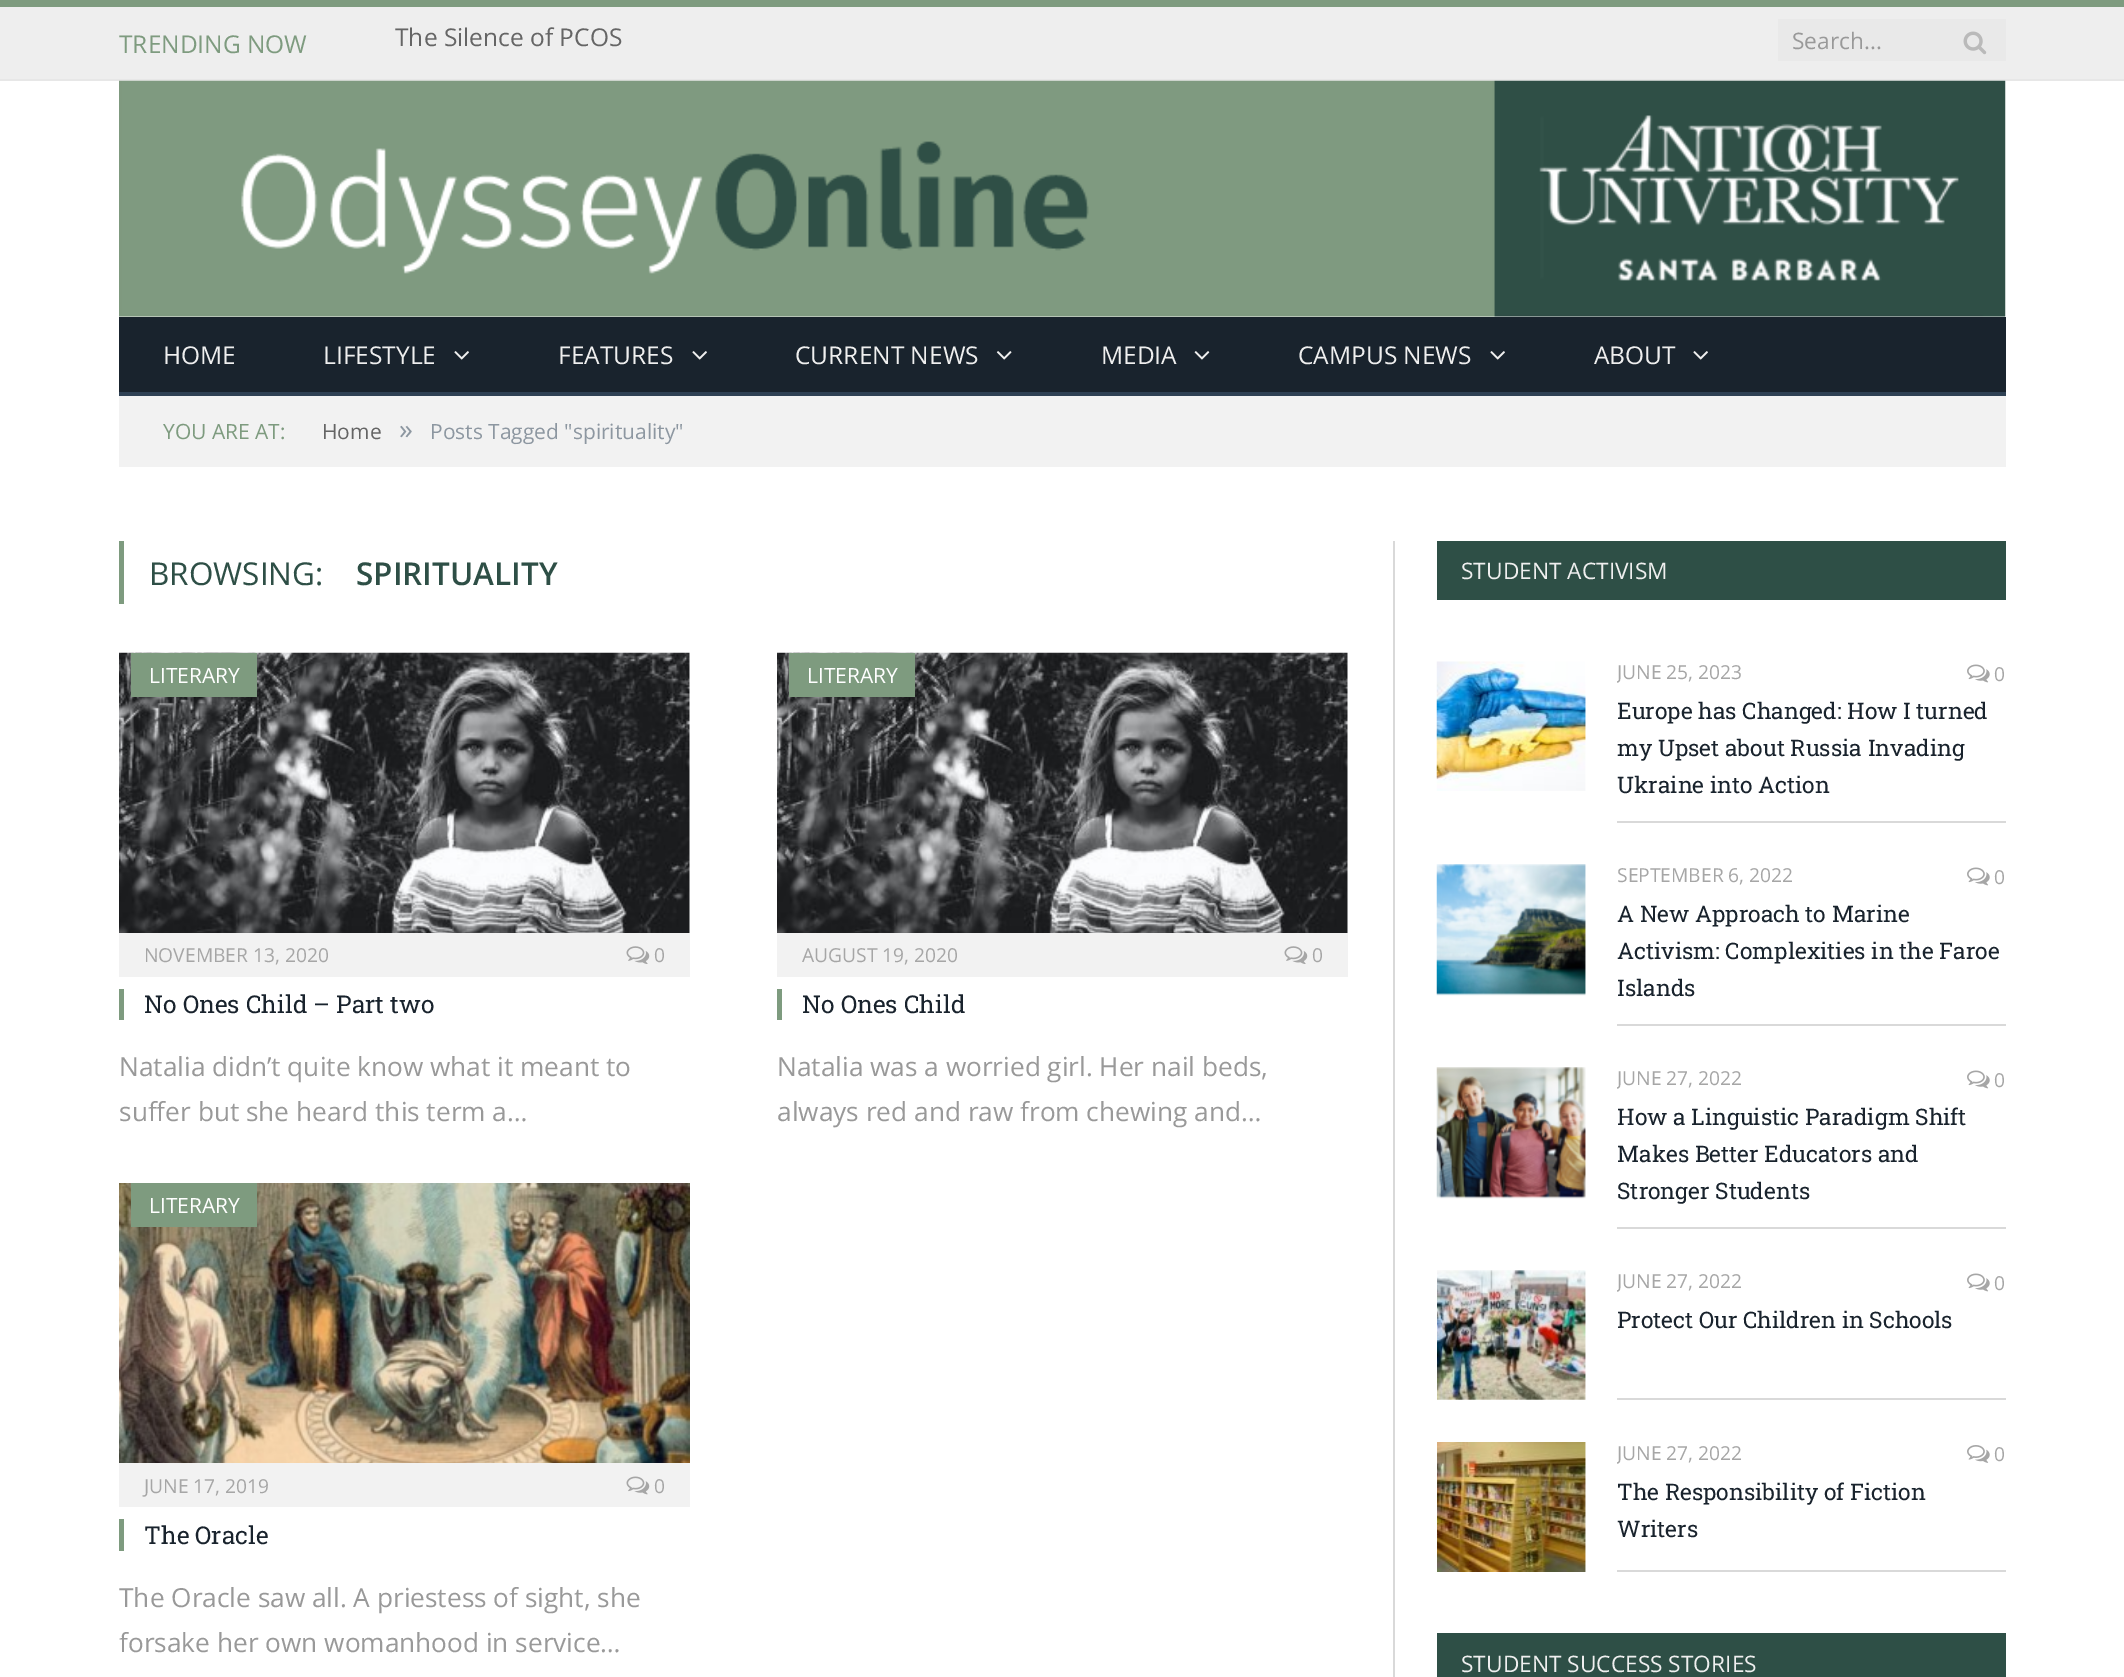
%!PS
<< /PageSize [2124 1677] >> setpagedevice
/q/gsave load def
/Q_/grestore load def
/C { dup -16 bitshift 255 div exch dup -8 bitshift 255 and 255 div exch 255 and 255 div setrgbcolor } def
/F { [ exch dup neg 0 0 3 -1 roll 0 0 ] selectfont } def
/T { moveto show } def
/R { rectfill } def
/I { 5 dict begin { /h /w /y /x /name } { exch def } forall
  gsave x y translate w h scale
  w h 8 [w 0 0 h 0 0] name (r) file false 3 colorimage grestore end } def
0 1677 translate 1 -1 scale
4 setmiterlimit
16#FFFFFF C
0 0 2124 1677 R
16#EEEEEE C
0 7 2124 72 R
16#7E9B7F C
0 0 2124 7 R
16#E7E7E7 C
0 79 2124 2 R
/OpenSans-Regular 24.5 F
16#7E9B7F C
(TRENDING NOW) 119 53 T
16#656565 C
(The Silence of PCOS) 395 46 T
16#E9E9E9 C
1778 19 228 42 R
/OpenSans-Regular 22.75 F
16#999999 C
(Search...) 1792 49 T
(1.rgb) 1963 31 24 24 I
(2.rgb) 119 80 1887 237 I
16#19232D C
119 317 1887 75 R
16#2F4154 C
119 392 1887 4 R
/OpenSans-Regular 24.5 F
16#EFEFEF C
(HOME) 163 364 T
(LIFESTYLE) 323 364 T
(3.rgb) 454 351 15 9 I
(FEATURES) 558 364 T
(3.rgb) 692 351 15 9 I
(CURRENT NEWS) 795 364 T
(4.rgb) 996 351 16 9 I
(MEDIA) 1101 364 T
(5.rgb) 1194 351 16 9 I
(CAMPUS NEWS) 1298 364 T
(3.rgb) 1490 351 15 9 I
(ABOUT) 1594 364 T
(3.rgb) 1693 351 15 9 I
16#F2F2F2 C
119 396 1887 71 R
/OpenSans-Regular 21 F
16#7E9B7F C
(YOU ARE AT:) 163 439 T
16#656565 C
(Home) 322 439 T
/OpenSans-Regular 28 F
16#8D97A1 C
(») 399 439 T
/OpenSans-Regular 21 F
(Posts Tagged "spirituality") 430 439 T
16#7E9B7F C
119 541 5 63 R
/OpenSans-Regular 31.5 F
16#2E4F46 C
(BROWSING:) 149 585 T
/OpenSans-SemiBold 31.5 F
(SPIRITUALITY) 356 585 T
(6.rgb) 119 652 571 281 I
16#7E9B7F C
131 653 126 44 R
/OpenSans-Regular 21 F
16#FFFFFF C
(LITERARY) 149 683 T
16#F2F2F2 C
119 933 571 44 R
/OpenSans-Regular 19.25 F
16#A6A6A6 C
(NOVEMBER 13, 2020) 144 962 T
(7.rgb) 626 946 24 18 I
(0) 654 962 T
16#7E9B7F C
119 989 5 31 R
/RobotoSlab-Regular 24.5 F
16#19232D C
(No Ones Child – Part two) 144 1013 T
/OpenSans-Regular 26.25 F
16#999999 C
(Natalia didn’t quite know what it meant to) 119 1076 T
(suffer but she heard this term a…) 119 1121 T
(6.rgb) 777 652 571 281 I
16#7E9B7F C
789 653 126 44 R
/OpenSans-Regular 21 F
16#FFFFFF C
(LITERARY) 807 683 T
16#F2F2F2 C
777 933 571 44 R
/OpenSans-Regular 19.25 F
16#A6A6A6 C
(AUGUST 19, 2020) 802 962 T
(7.rgb) 1284 946 24 18 I
(0) 1312 962 T
16#7E9B7F C
777 989 5 31 R
/RobotoSlab-Regular 24.5 F
16#19232D C
(No Ones Child) 802 1013 T
/OpenSans-Regular 26.25 F
16#999999 C
(Natalia was a worried girl. Her nail beds,) 777 1076 T
(always red and raw from chewing and…) 777 1121 T
(8.rgb) 119 1183 571 280 I
16#7E9B7F C
131 1183 126 44 R
/OpenSans-Regular 21 F
16#FFFFFF C
(LITERARY) 149 1213 T
16#F2F2F2 C
119 1463 571 44 R
/OpenSans-Regular 19.25 F
16#A6A6A6 C
(JUNE 17, 2019) 144 1493 T
(9.rgb) 626 1476 24 19 I
(0) 654 1493 T
16#7E9B7F C
119 1519 5 32 R
/RobotoSlab-Regular 24.5 F
16#19232D C
(The Oracle) 144 1544 T
/OpenSans-Regular 26.25 F
16#999999 C
(The Oracle saw all. A priestess of sight, she) 119 1607 T
(forsake her own womanhood in service…) 119 1652 T
16#D9D9D9 C
1393 541 2 1136 R
16#2E4F46 C
1437 541 569 59 R
/OpenSans-Regular 22.75 F
16#EFEFEF C
(STUDENT ACTIVISM) 1461 579 T
(10.rgb) 1436 661 150 130 I
16#D9D9D9 C
1617 821 389 2 R
q
1617 662 389 159 rectclip
/OpenSans-Regular 19.25 F
16#A6A6A6 C
(JUNE 25, 2023) 1617 679 T
Q_
(11.rgb) 1967 664 23 19 I
/OpenSans-Regular 19.25 F
16#A6A6A6 C
(0) 1994 681 T
/RobotoSlab-Regular 22.75 F
16#19232D C
(Europe has Changed: How I turned) 1617 719 T
(my Upset about Russia Invading) 1617 756 T
(Ukraine into Action) 1617 793 T
(12.rgb) 1436 864 150 132 I
16#D9D9D9 C
1617 1024 389 2 R
/OpenSans-Regular 19.25 F
16#A6A6A6 C
(SEPTEMBER 6, 2022) 1617 882 T
(11.rgb) 1967 867 23 19 I
(0) 1994 884 T
/RobotoSlab-Regular 22.75 F
16#19232D C
(A New Approach to Marine) 1617 922 T
(Activism: Complexities in the Faroe) 1617 959 T
(Islands) 1617 996 T
(13.rgb) 1436 1067 150 132 I
16#D9D9D9 C
1617 1227 389 2 R
q
1617 1068 389 159 rectclip
/OpenSans-Regular 19.25 F
16#A6A6A6 C
(JUNE 27, 2022) 1617 1085 T
Q_
(11.rgb) 1967 1070 23 19 I
/OpenSans-Regular 19.25 F
16#A6A6A6 C
(0) 1994 1087 T
/RobotoSlab-Regular 22.75 F
16#19232D C
(How a Linguistic Paradigm Shift) 1617 1125 T
(Makes Better Educators and) 1617 1162 T
(Stronger Students) 1617 1199 T
(14.rgb) 1437 1270 149 130 I
16#D9D9D9 C
1617 1398 389 2 R
q
1617 1271 389 127 rectclip
/OpenSans-Regular 19.25 F
16#A6A6A6 C
(JUNE 27, 2022) 1617 1288 T
Q_
(11.rgb) 1967 1273 23 19 I
/OpenSans-Regular 19.25 F
16#A6A6A6 C
(0) 1994 1290 T
/RobotoSlab-Regular 22.75 F
16#19232D C
(Protect Our Children in Schools) 1617 1328 T
(15.rgb) 1437 1442 149 130 I
16#D9D9D9 C
1617 1570 389 2 R
q
1617 1442 389 128 rectclip
/OpenSans-Regular 19.25 F
16#A6A6A6 C
(JUNE 27, 2022) 1617 1460 T
Q_
(16.rgb) 1967 1445 23 18 I
/OpenSans-Regular 19.25 F
16#A6A6A6 C
(0) 1994 1461 T
/RobotoSlab-Regular 22.75 F
16#19232D C
(The Responsibility of Fiction) 1617 1500 T
(Writers) 1617 1537 T
16#2E4F46 C
1437 1633 569 44 R
/OpenSans-Regular 22.75 F
16#EFEFEF C
(STUDENT SUCCESS STORIES) 1461 1672 T
showpage
